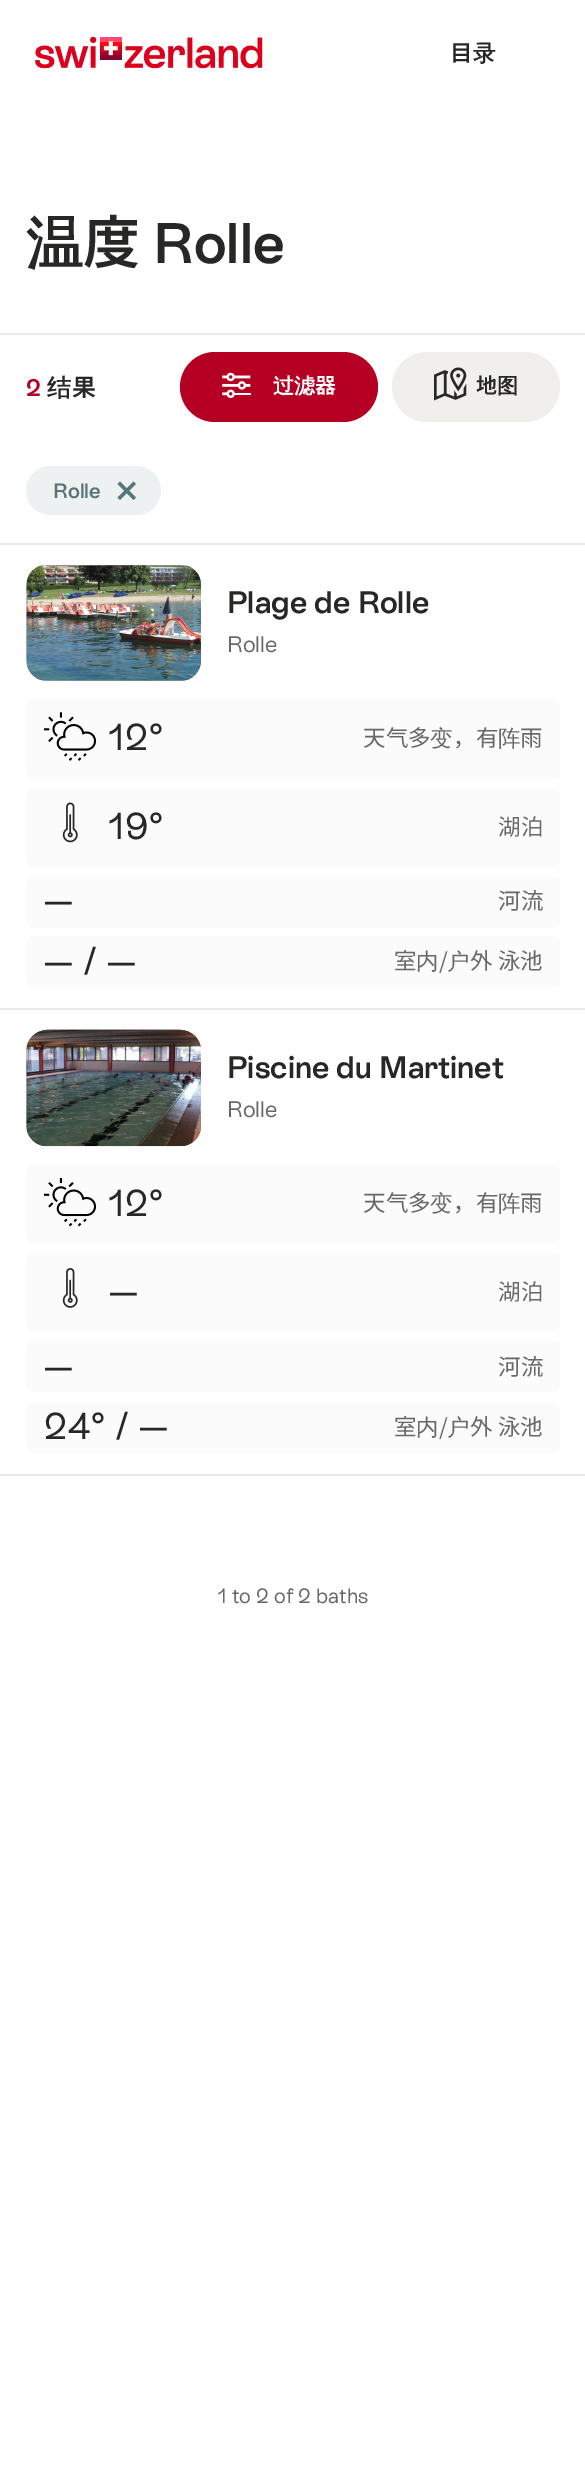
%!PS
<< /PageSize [585 2482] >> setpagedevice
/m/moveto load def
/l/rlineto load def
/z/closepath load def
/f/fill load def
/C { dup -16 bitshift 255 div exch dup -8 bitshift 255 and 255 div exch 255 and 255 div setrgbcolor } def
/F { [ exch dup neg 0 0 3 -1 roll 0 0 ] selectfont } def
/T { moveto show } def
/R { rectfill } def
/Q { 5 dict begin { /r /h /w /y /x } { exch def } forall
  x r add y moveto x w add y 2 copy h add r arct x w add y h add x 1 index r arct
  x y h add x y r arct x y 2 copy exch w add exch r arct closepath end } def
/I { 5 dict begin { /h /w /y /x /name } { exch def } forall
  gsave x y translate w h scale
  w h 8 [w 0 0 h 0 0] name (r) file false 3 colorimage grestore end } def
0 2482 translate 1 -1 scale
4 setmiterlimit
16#FFFFFF C
0 0 585 2482 R
(1.rgb) 35 36 228 33 I
/NotoSansKR-SemiBold 22.5 F
16#272726 C
(目) 450 61 T
/WenQuanYiZenHei-Bold 22.5 F
(录) 473 61 T
16#E9E9E9 C
0 333 585 2 R
/WenQuanYiZenHei-Bold 57 F
16#272726 C
(温) 26 263 T
/NotoSansKR-SemiBold 57 F
(度) 83 263 T
/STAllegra-SemiBold 57 F
(Rolle) 153 263 T
/STAllegra-SemiBold 24 F
16#B50024 C
(2) 26 396 T
/WenQuanYiZenHei-Bold 24 F
16#272726 C
(结) 47 396 T
/NotoSansKR-SemiBold 24 F
(果) 72 396 T
16#B50024 C
180 352 198 70 35 Q f
(2.rgb) 222 372 29 26 I
/WenQuanYiZenHei-Bold 21 F
16#FFFFFF C
(过滤) 273 393 T
/NotoSansKR-SemiBold 21 F
(器) 315 393 T
16#F0EFEB C
392 352 168 70 35 Q f
(3.rgb) 434 367 33 34 I
16#272726 C
(地) 476 393 T
/WenQuanYiZenHei-Bold 21 F
(图) 497 393 T
16#EEF1F2 C
26 466 135 49 24.5 Q f
/STAllegra-SemiBold 20.75 F
16#577678 C
(Rolle) 53 498 T
120 481.5 m 16 16 l -2.5 2.5 l -16 -16 l z f
117.5 497.5 m 16 -16 l 2.5 2.5 l -16 16 l z f
16#E9E9E9 C
0 543 585 2 R
0 1008 585 2 R
(4.rgb) 26 565 175 116 I
(5.rgb) 26 565 175 116 I
/STAllegra-SemiBold 31 F
16#272726 C
(Plage de Rolle) 227 613 T
/STAllegra-Regular 22.5 F
16#686867 C
(Rolle) 227 652 T
16#FBFBFB C
26 698 534 81 9 Q f
(6.rgb) 44 712 52 49 I
/STAllegra-Regular 37.5 F
16#272726 C
109 750 m .75 0 (12°) ashow
/NotoSansKR-Regular 22.5 F
16#686867 C
(天气多) 363 746 T
/WenQuanYiZenHei-Medium 22.5 F
(变) 430 746 T
/NotoSansKR-Regular 22.5 F
(，有) 453 746 T
/WenQuanYiZenHei-Medium 22.5 F
(阵) 498 746 T
/NotoSansKR-Regular 22.5 F
(雨) 520 746 T
16#FBFBFB C
26 788 534 80 9 Q f
(7.rgb) 62 802 16 41 I
/STAllegra-Regular 37.5 F
16#272726 C
109 839 m .75 0 (19°) ashow
/NotoSansKR-Regular 22.5 F
16#686867 C
(湖泊) 498 835 T
16#FBFBFB C
26 877 534 51 9 Q f
/STAllegra-Regular 37.5 F
16#272726 C
44 913 m .75 0 (—) ashow
/NotoSansKR-Regular 22.5 F
16#686867 C
(河流) 498 909 T
16#FBFBFB C
26 936 534 51 9 Q f
/STAllegra-Regular 37.5 F
16#272726 C
44 974 m -1 0 32 .75 0 (— / —) awidthshow
/NotoSansKR-Regular 22.5 F
16#686867 C
(室) 394 969 T
/WenQuanYiZenHei-Medium 22.5 F
(内) 416 969 T
/NotoSansKR-Regular 22.5 F
(/) 439 969 T
/WenQuanYiZenHei-Medium 22.5 F
(户) 447 969 T
/NotoSansKR-Regular 22.5 F
(外 泳池) 470 969 T
16#E9E9E9 C
0 1474 585 2 R
(8.rgb) 26 1029 175 118 I
(9.rgb) 26 1029 175 118 I
/STAllegra-SemiBold 31 F
16#272726 C
(Piscine du Martinet) 227 1078 T
/STAllegra-Regular 22.5 F
16#686867 C
(Rolle) 227 1117 T
16#FBFBFB C
26 1164 534 80 9 Q f
(10.rgb) 44 1178 52 49 I
/STAllegra-Regular 37.5 F
16#272726 C
109 1216 m .75 0 (12°) ashow
/NotoSansKR-Regular 22.5 F
16#686867 C
(天气多) 363 1211 T
/WenQuanYiZenHei-Medium 22.5 F
(变) 430 1211 T
/NotoSansKR-Regular 22.5 F
(，有) 453 1211 T
/WenQuanYiZenHei-Medium 22.5 F
(阵) 498 1211 T
/NotoSansKR-Regular 22.5 F
(雨) 520 1211 T
16#FBFBFB C
26 1253 534 79 9 Q f
(11.rgb) 62 1268 16 40 I
/STAllegra-Regular 37.5 F
16#272726 C
109 1304 m .75 0 (—) ashow
/NotoSansKR-Regular 22.5 F
16#686867 C
(湖泊) 498 1300 T
16#FBFBFB C
26 1341 534 52 9 Q f
/STAllegra-Regular 37.5 F
16#272726 C
44 1379 m .75 0 (—) ashow
/NotoSansKR-Regular 22.5 F
16#686867 C
(河流) 498 1375 T
16#FBFBFB C
26 1402 534 51 9 Q f
/STAllegra-Regular 37.5 F
16#272726 C
44 1439 m -1 0 32 .75 0 (24° / —) awidthshow
/NotoSansKR-Regular 22.5 F
16#686867 C
(室) 394 1435 T
/WenQuanYiZenHei-Medium 22.5 F
(内) 416 1435 T
/NotoSansKR-Regular 22.5 F
(/) 439 1435 T
/WenQuanYiZenHei-Medium 22.5 F
(户) 447 1435 T
/NotoSansKR-Regular 22.5 F
(外 泳池) 470 1435 T
/STAllegra-Regular 20.75 F
(1 to 2 of 2 baths) 218 1603 T
showpage
